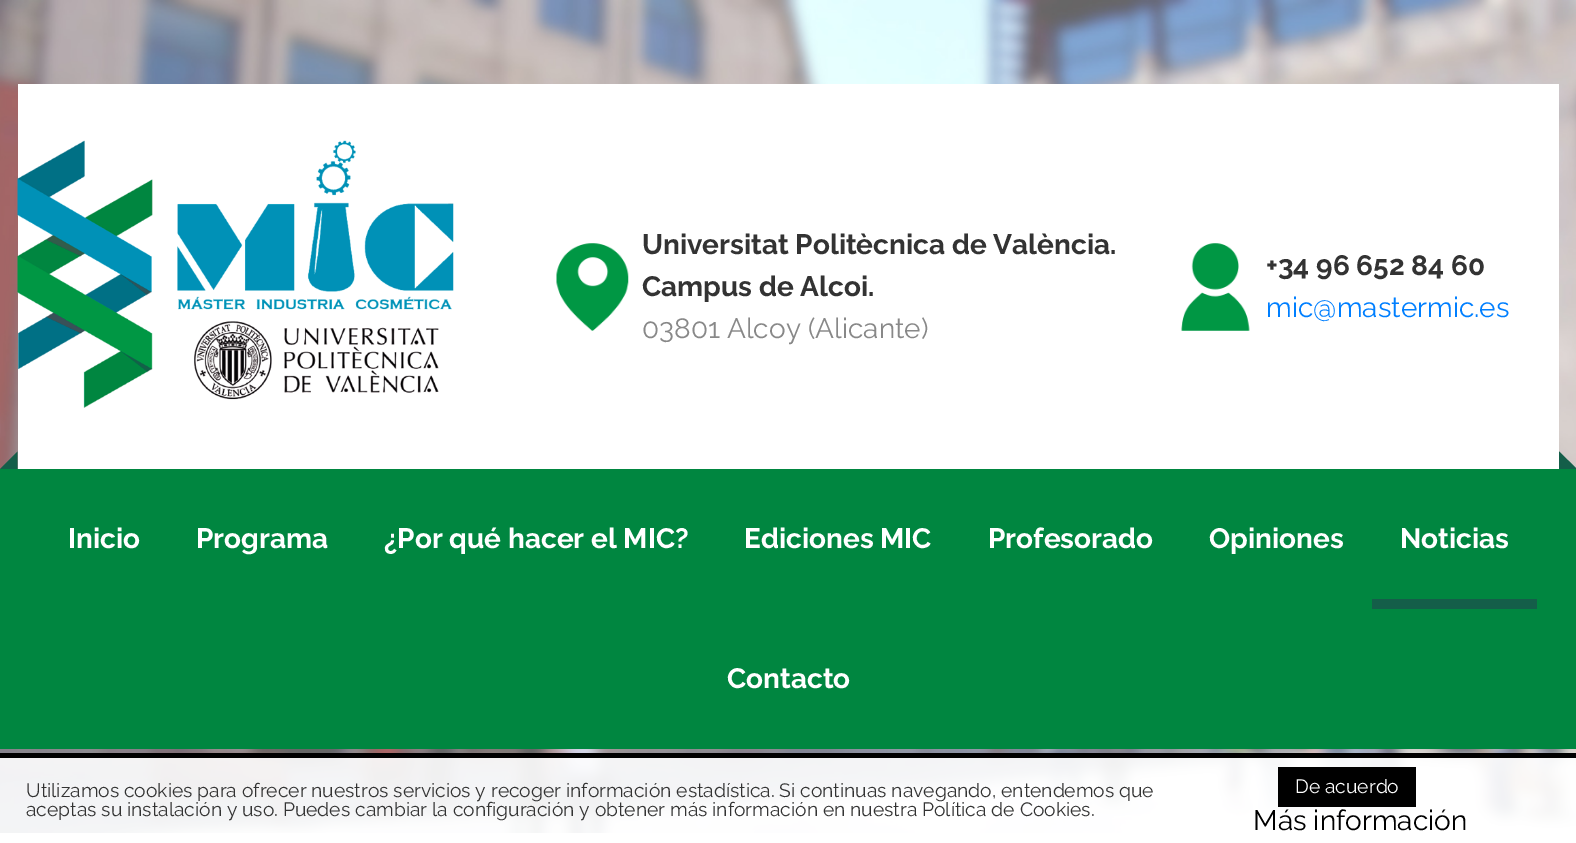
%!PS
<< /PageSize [1576 843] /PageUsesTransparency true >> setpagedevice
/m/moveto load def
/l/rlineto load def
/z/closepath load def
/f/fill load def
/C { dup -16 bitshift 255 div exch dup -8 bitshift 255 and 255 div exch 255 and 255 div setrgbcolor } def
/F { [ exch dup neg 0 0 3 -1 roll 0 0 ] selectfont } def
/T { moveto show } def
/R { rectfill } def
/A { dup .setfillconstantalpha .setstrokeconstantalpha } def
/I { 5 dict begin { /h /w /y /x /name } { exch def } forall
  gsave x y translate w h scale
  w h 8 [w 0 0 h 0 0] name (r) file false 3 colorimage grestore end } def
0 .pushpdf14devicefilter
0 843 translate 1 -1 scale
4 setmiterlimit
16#FFFFFF C
0 0 1576 843 R
(1.rgb) 0 0 1576 833 I
18 84 1541 385 R
(2.rgb) 17 140 437 268 I
(3.rgb) 556 243 73 88 I
/Raleway-Bold 28 F
16#333333 C
(Universitat Politècnica de València.) 642 254 T
(Campus de Alcoi.) 642 296 T
/Raleway-Regular 28 F
16#888888 C
(03801 Alcoy \(Alicante\)) 642 338 T
(4.rgb) 1181 243 69 88 I
/Raleway-Bold 28 F
16#333333 C
(+34 96 652 84 60) 1266 275 T
/Raleway-Regular 28 F
16#007FFF C
(mic@mastermic.es) 1266 317 T
16#008640 C
0 469 1576 280 R
16#145E49 C
17.5 469 m -17.5 0 l 17.5 -17.5 l z f
1559 469 m 0 -17.5 l 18 17.5 l z f
/Raleway-Bold 28 F
16#FFFFFF C
(Inicio) 68 548 T
(Programa) 196 548 T
(¿Por qué hacer el MIC?) 384 548 T
(Ediciones MIC) 744 548 T
(Profesorado) 988 548 T
(Opiniones) 1209 548 T
16#145E49 C
1372 599 165 10 R
16#FFFFFF C
(Noticias) 1400 548 T
(Contacto) 727 688 T
0.9 A
0 758 1576 75 R
1 A
16#000000 C
0 753 1576 5 R
/Raleway-Regular 19.25 F
16#333333 C
(Utilizamos cookies para ofrecer nuestros servicios y recoger información estadística. Si continuas navegando, entendemos que) 26 797 T
(aceptas su instalación y uso. Puedes cambiar la configuración y obtener más información en nuestra Política de Cookies.) 26 816 T
16#000000 C
1278 767 138 40 R
16#FFFFFF C
(De acuerdo) 1295 793 T
/Raleway-Regular 28 F
16#000000 C
(Más información) 1253 830 T
.poppdf14devicefilter showpage
